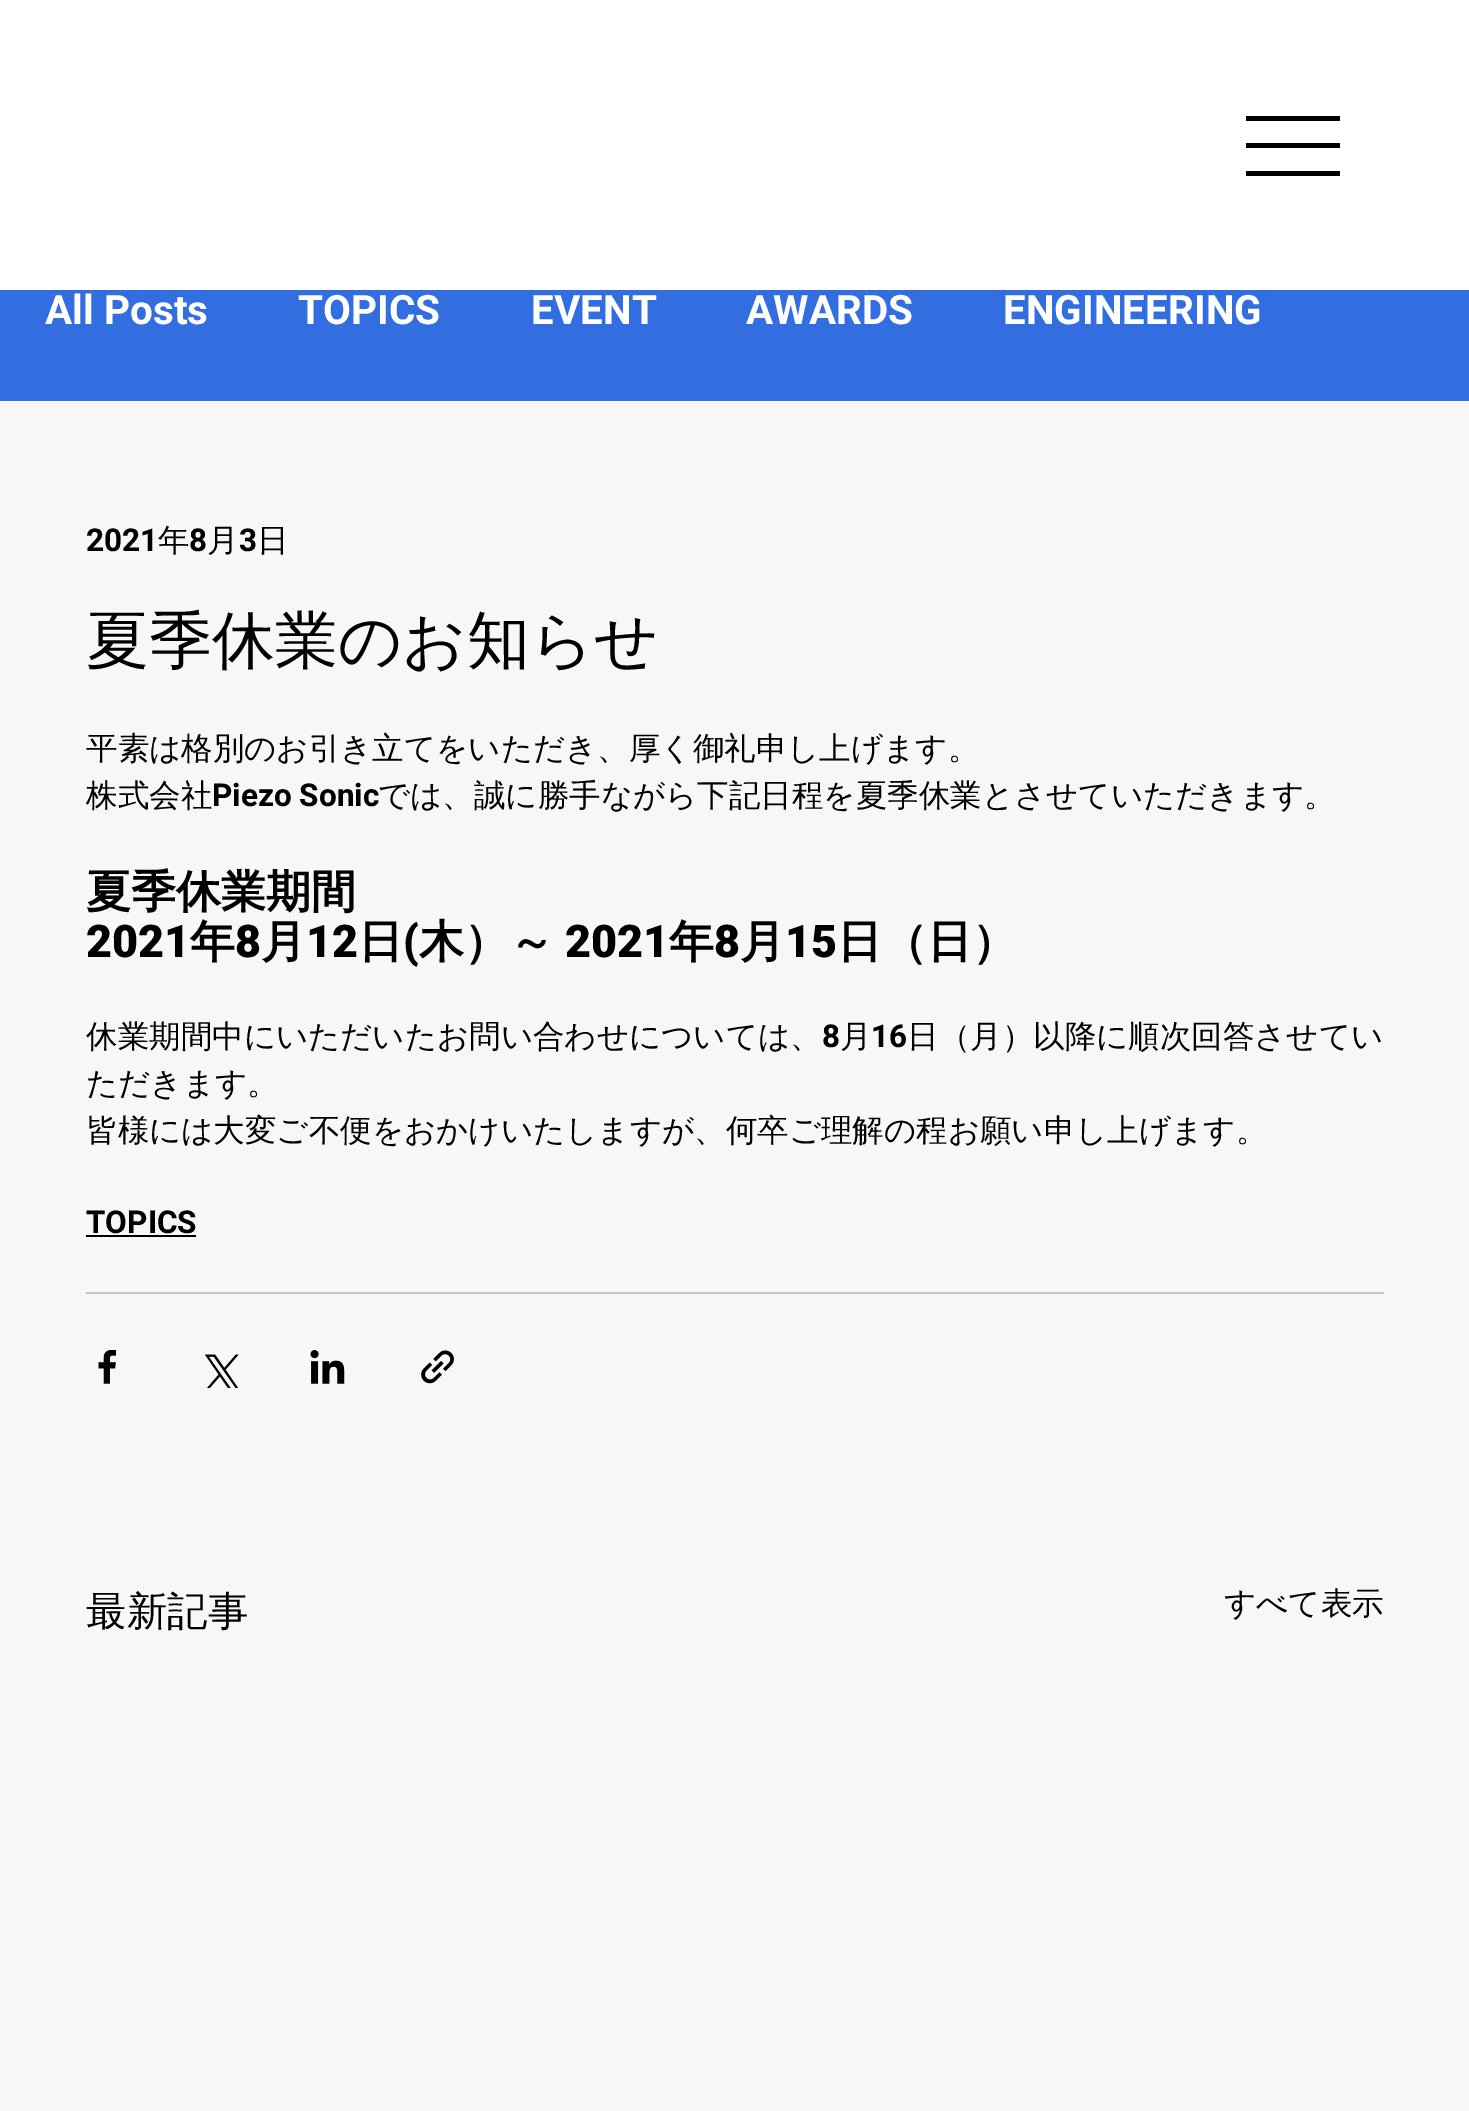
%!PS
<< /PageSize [1469 2111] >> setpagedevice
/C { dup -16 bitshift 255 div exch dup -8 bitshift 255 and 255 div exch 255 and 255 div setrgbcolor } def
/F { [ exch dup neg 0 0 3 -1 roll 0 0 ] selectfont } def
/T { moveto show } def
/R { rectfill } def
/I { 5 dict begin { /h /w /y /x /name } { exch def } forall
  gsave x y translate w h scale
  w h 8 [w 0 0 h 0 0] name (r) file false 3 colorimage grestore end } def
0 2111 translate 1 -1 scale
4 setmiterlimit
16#F7F7F7 C
0 0 1469 2111 R
16#FFFFFF C
0 0 1469 290 R
16#000000 C
1246 116 94 5 R
1246 143 94 5 R
1246 171 94 5 R
16#336EE0 C
0 290 1469 111 R
/Roboto-Bold 40.5 F
16#FFFFFF C
(All Posts) 45 324 T
(TOPICS) 298 324 T
(EVENT) 531 324 T
(AWARDS) 746 324 T
(ENGINEERING) 1003 324 T
/Roboto-Bold 31.5 F
16#000000 C
(2021) 86 551 T
/WenQuanYiZenHei-Medium 31.5 F
(年) 158 551 T
/Roboto-Bold 31.5 F
(8) 189 551 T
/WenQuanYiZenHei-Medium 31.5 F
(月) 207 551 T
/Roboto-Bold 31.5 F
(3) 239 551 T
/WenQuanYiZenHei-Medium 31.5 F
(日) 257 551 T
/WenQuanYiZenHei-Medium 63 F
(夏季休業のお知らせ) 86 662 T
/WenQuanYiZenHei-Medium 31.5 F
(平素は格別のお引き立てをいただき、厚く御礼申し上げます。) 86 759 T
(株式会社) 86 806 T
/Roboto-Bold 31.5 F
(Piezo Sonic) 212 806 T
/WenQuanYiZenHei-Medium 31.5 F
(では、誠に勝手ながら下記日程を夏季休業とさせていただきます。) 378 806 T
/WenQuanYiZenHei-Bold 45 F
(夏季休業期間) 86 907 T
/Roboto-Black 45 F
(2021) 86 957 T
/WenQuanYiZenHei-Bold 45 F
(年) 190 957 T
/Roboto-Black 45 F
(8) 235 957 T
/WenQuanYiZenHei-Bold 45 F
(月) 261 957 T
/Roboto-Black 45 F
(12) 306 957 T
/WenQuanYiZenHei-Bold 45 F
(日) 358 957 T
/Roboto-Black 45 F
(\() 403 957 T
/WenQuanYiZenHei-Bold 45 F
(木）～) 419 957 T
/Roboto-Black 45 F
(2021) 565 957 T
/WenQuanYiZenHei-Bold 45 F
(年) 669 957 T
/Roboto-Black 45 F
(8) 714 957 T
/WenQuanYiZenHei-Bold 45 F
(月) 740 957 T
/Roboto-Black 45 F
(15) 785 957 T
/WenQuanYiZenHei-Bold 45 F
(日（日）) 837 957 T
/WenQuanYiZenHei-Medium 31.5 F
(休業期間中にいただいたお問い合わせについては、) 86 1047 T
/Roboto-Bold 31.5 F
(8) 822 1047 T
/WenQuanYiZenHei-Medium 31.5 F
(月) 840 1047 T
/Roboto-Bold 31.5 F
(16) 871 1047 T
/WenQuanYiZenHei-Medium 31.5 F
(日（月）以降に順次回答させてい) 907 1047 T
(ただきます。) 86 1094 T
(皆様には大変ご不便をおかけいたしますが、何卒ご理解の程お願い申し上げます。) 86 1141 T
/Roboto-Bold 31.5 F
(TOPICS) 86 1233 T
86 1235 110 2 R
16#C6C6C6 C
86 1292 1298 2 R
(1.rgb) 98 1350 19 34 I
(2.rgb) 204 1354 35 34 I
(3.rgb) 310 1350 35 34 I
(4.rgb) 421 1350 33 34 I
/WenQuanYiZenHei-Medium 40.5 F
16#000000 C
(最新記事) 86 1625 T
/WenQuanYiZenHei-Medium 31.5 F
(すべて表示) 1224 1614 T
showpage
